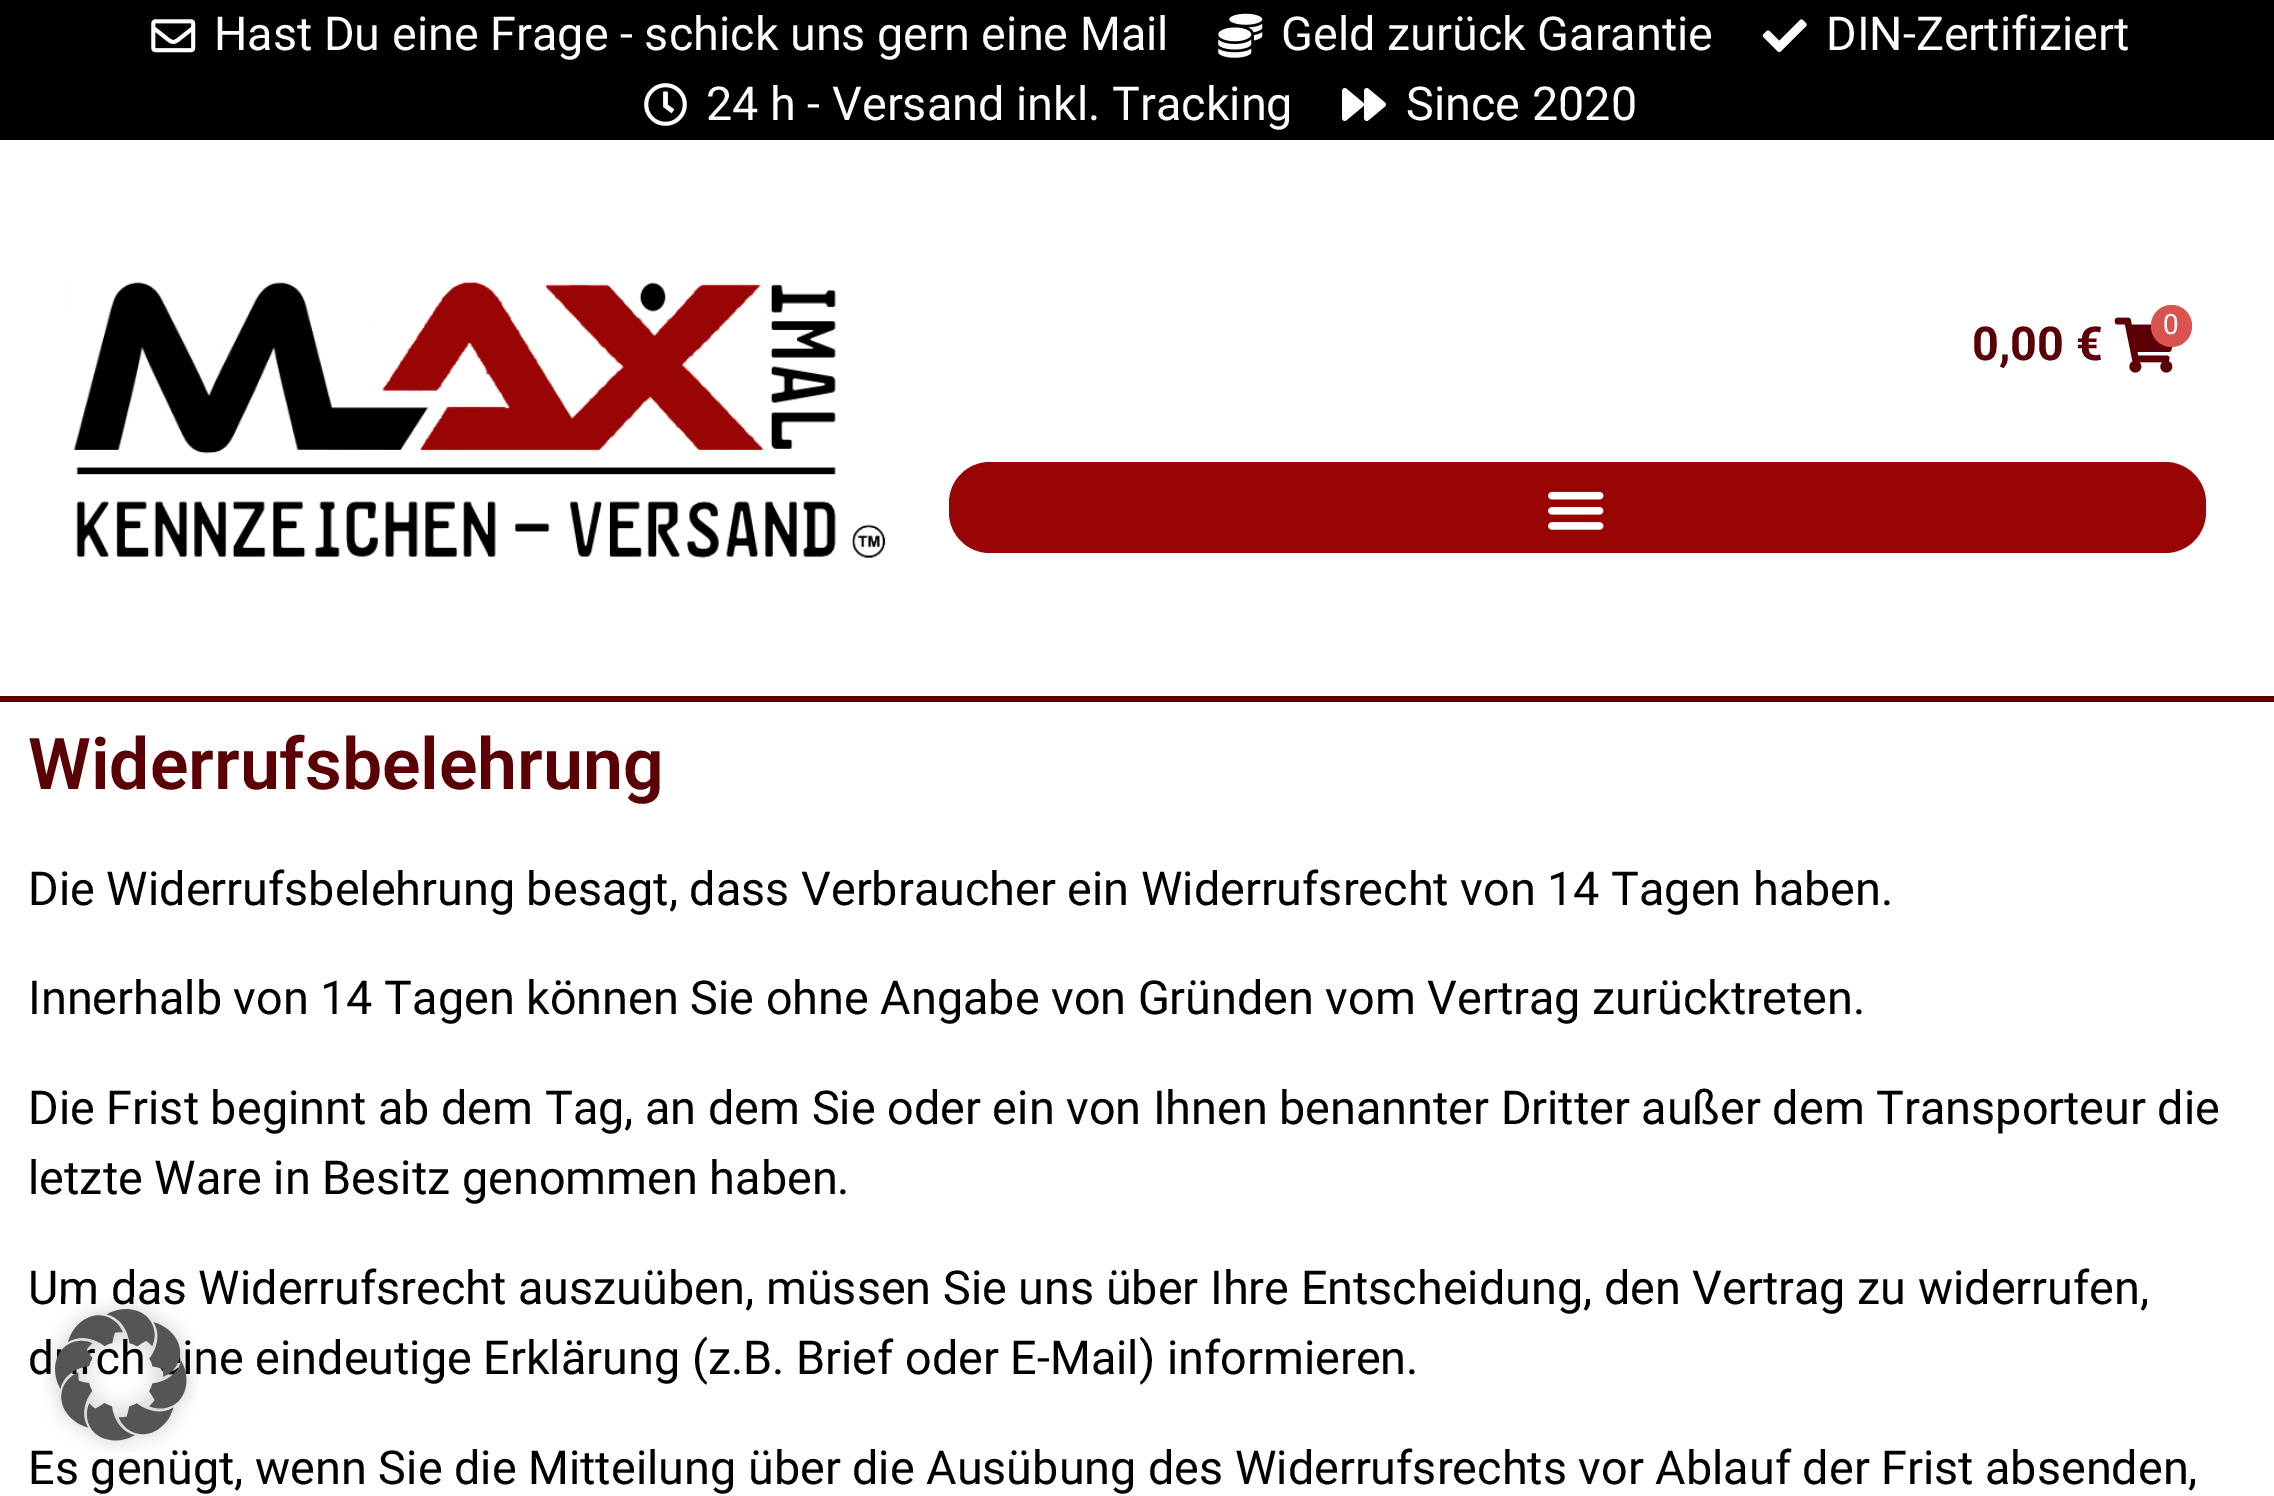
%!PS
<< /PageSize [2274 1496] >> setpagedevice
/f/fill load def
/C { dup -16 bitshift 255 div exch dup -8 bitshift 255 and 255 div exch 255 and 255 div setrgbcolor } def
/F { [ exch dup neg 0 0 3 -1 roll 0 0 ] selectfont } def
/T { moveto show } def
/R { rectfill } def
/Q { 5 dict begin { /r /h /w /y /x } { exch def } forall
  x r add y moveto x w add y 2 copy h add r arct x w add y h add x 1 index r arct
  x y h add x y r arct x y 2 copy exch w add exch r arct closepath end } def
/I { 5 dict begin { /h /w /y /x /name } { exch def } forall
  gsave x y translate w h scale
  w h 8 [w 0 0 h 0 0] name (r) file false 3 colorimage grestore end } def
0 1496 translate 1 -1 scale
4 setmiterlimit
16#FFFFFF C
0 0 2274 1496 R
16#000000 C
0 0 2274 140 R
(1.rgb) 151 19 45 34 I
/Roboto-Regular 46.75 F
16#FFFFFF C
(Hast Du eine Frage - schick uns gern eine Mail) 214 50 T
(2.rgb) 1218 13 45 45 I
(Geld zurück Garantie) 1281 50 T
(3.rgb) 1762 19 45 34 I
(DIN-Zertifiziert) 1826 50 T
(4.rgb) 644 83 43 43 I
(24 h - Versand inkl. Tracking) 706 120 T
(5.rgb) 1342 88 44 33 I
(Since 2020) 1406 120 T
16#5B0106 C
0 696 2274 6 R
(6.rgb) 69 278 817 280 I
/Roboto-Bold 46.75 F
(0,00 €) 1972 360 T
(7.rgb) 2114 317 59 56 I
16#D9534F C
2151 305 41 42 20.5 Q f
/Roboto-Regular 28 F
16#FFFFFF C
(0) 2163 334 T
16#990505 C
949 462 1257 91 41 Q f
(8.rgb) 1548 491 56 39 I
/Roboto-SemiBold 71.5 F
16#5B0106 C
(Widerrufsbelehrung) 28 789 T
/Roboto-Regular 46.75 F
16#000000 C
(Die Widerrufsbelehrung besagt, dass Verbraucher ein Widerrufsrecht von 14 Tagen haben.) 28 905 T
(Innerhalb von 14 Tagen können Sie ohne Angabe von Gründen vom Vertrag zurücktreten.) 28 1014 T
(Die Frist beginnt ab dem Tag, an dem Sie oder ein von Ihnen benannter Dritter außer dem Transporteur die) 28 1124 T
(letzte Ware in Besitz genommen haben.) 28 1194 T
(Um das Widerrufsrecht auszuüben, müssen Sie uns über Ihre Entscheidung, den Vertrag zu widerrufen,) 28 1304 T
(d) 28 1374 T
(ch eine eindeutige Erklärung \(z.B. Brief oder E-Mail\) informieren.) 95 1374 T
(Es genügt, wenn Sie die Mitteilung über die Ausübung des Widerrufsrechts vor Ablauf der Frist absenden,) 28 1484 T
(9.rgb) 43 1297 155 155 I
showpage
